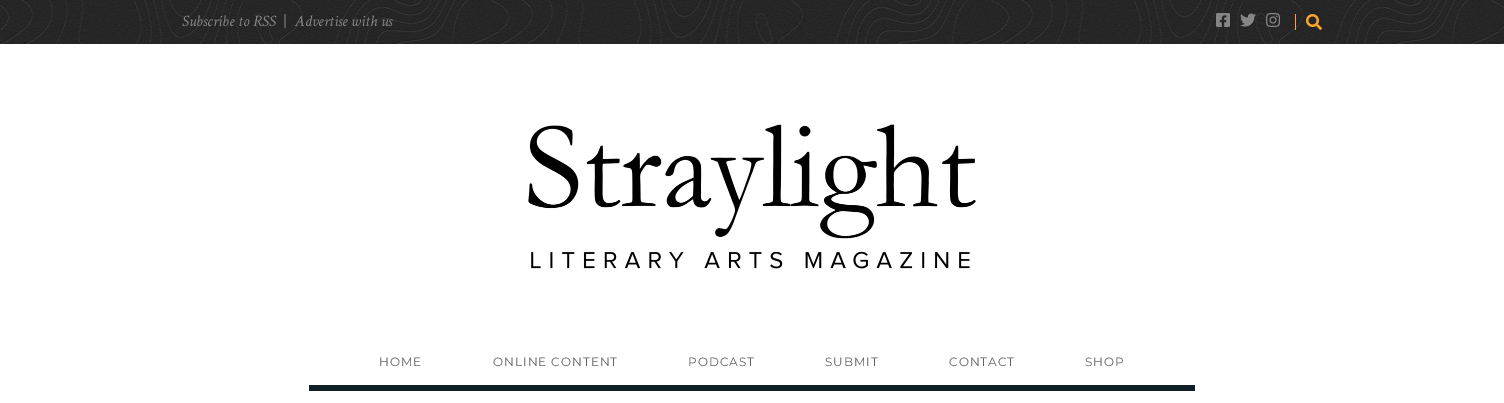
%!PS
<< /PageSize [1504 403] >> setpagedevice
/m/moveto load def
/C { dup -16 bitshift 255 div exch dup -8 bitshift 255 and 255 div exch 255 and 255 div setrgbcolor } def
/F { [ exch dup neg 0 0 3 -1 roll 0 0 ] selectfont } def
/T { moveto show } def
/R { rectfill } def
/I { 5 dict begin { /h /w /y /x /name } { exch def } forall
  gsave x y translate w h scale
  w h 8 [w 0 0 h 0 0] name (r) file false 3 colorimage grestore end } def
0 403 translate 1 -1 scale
4 setmiterlimit
16#FFFFFF C
0 0 1504 403 R
(1.rgb) 0 0 1504 44 I
/CrimsonText-Italic 16 F
16#868686 C
(Subscribe to RSS) 182 26 T
/CrimsonText-Regular 16 F
(|) 283 26 T
/CrimsonText-Italic 16 F
(Advertise with us) 295 26 T
(2.rgb) 1216 13 14 14 I
(3.rgb) 1240 13 16 14 I
(4.rgb) 1266 13 14 14 I
16#FAA629 C
1295 14 1 16 R
(5.rgb) 1306 14 16 16 I
(6.rgb) 528 124 448 145 I
16#0F1F25 C
309 385 886 6 R
/Montserrat-Regular 12 F
16#636363 C
379 366 m 1 0 (HOME) ashow
493 366 m 1 0 (ONLINE CONTENT) ashow
688 366 m 1 0 (PODCAST) ashow
825 366 m 1 0 (SUBMIT) ashow
949 366 m 1 0 (CONTACT) ashow
1085 366 m 1 0 (SHOP) ashow
showpage
